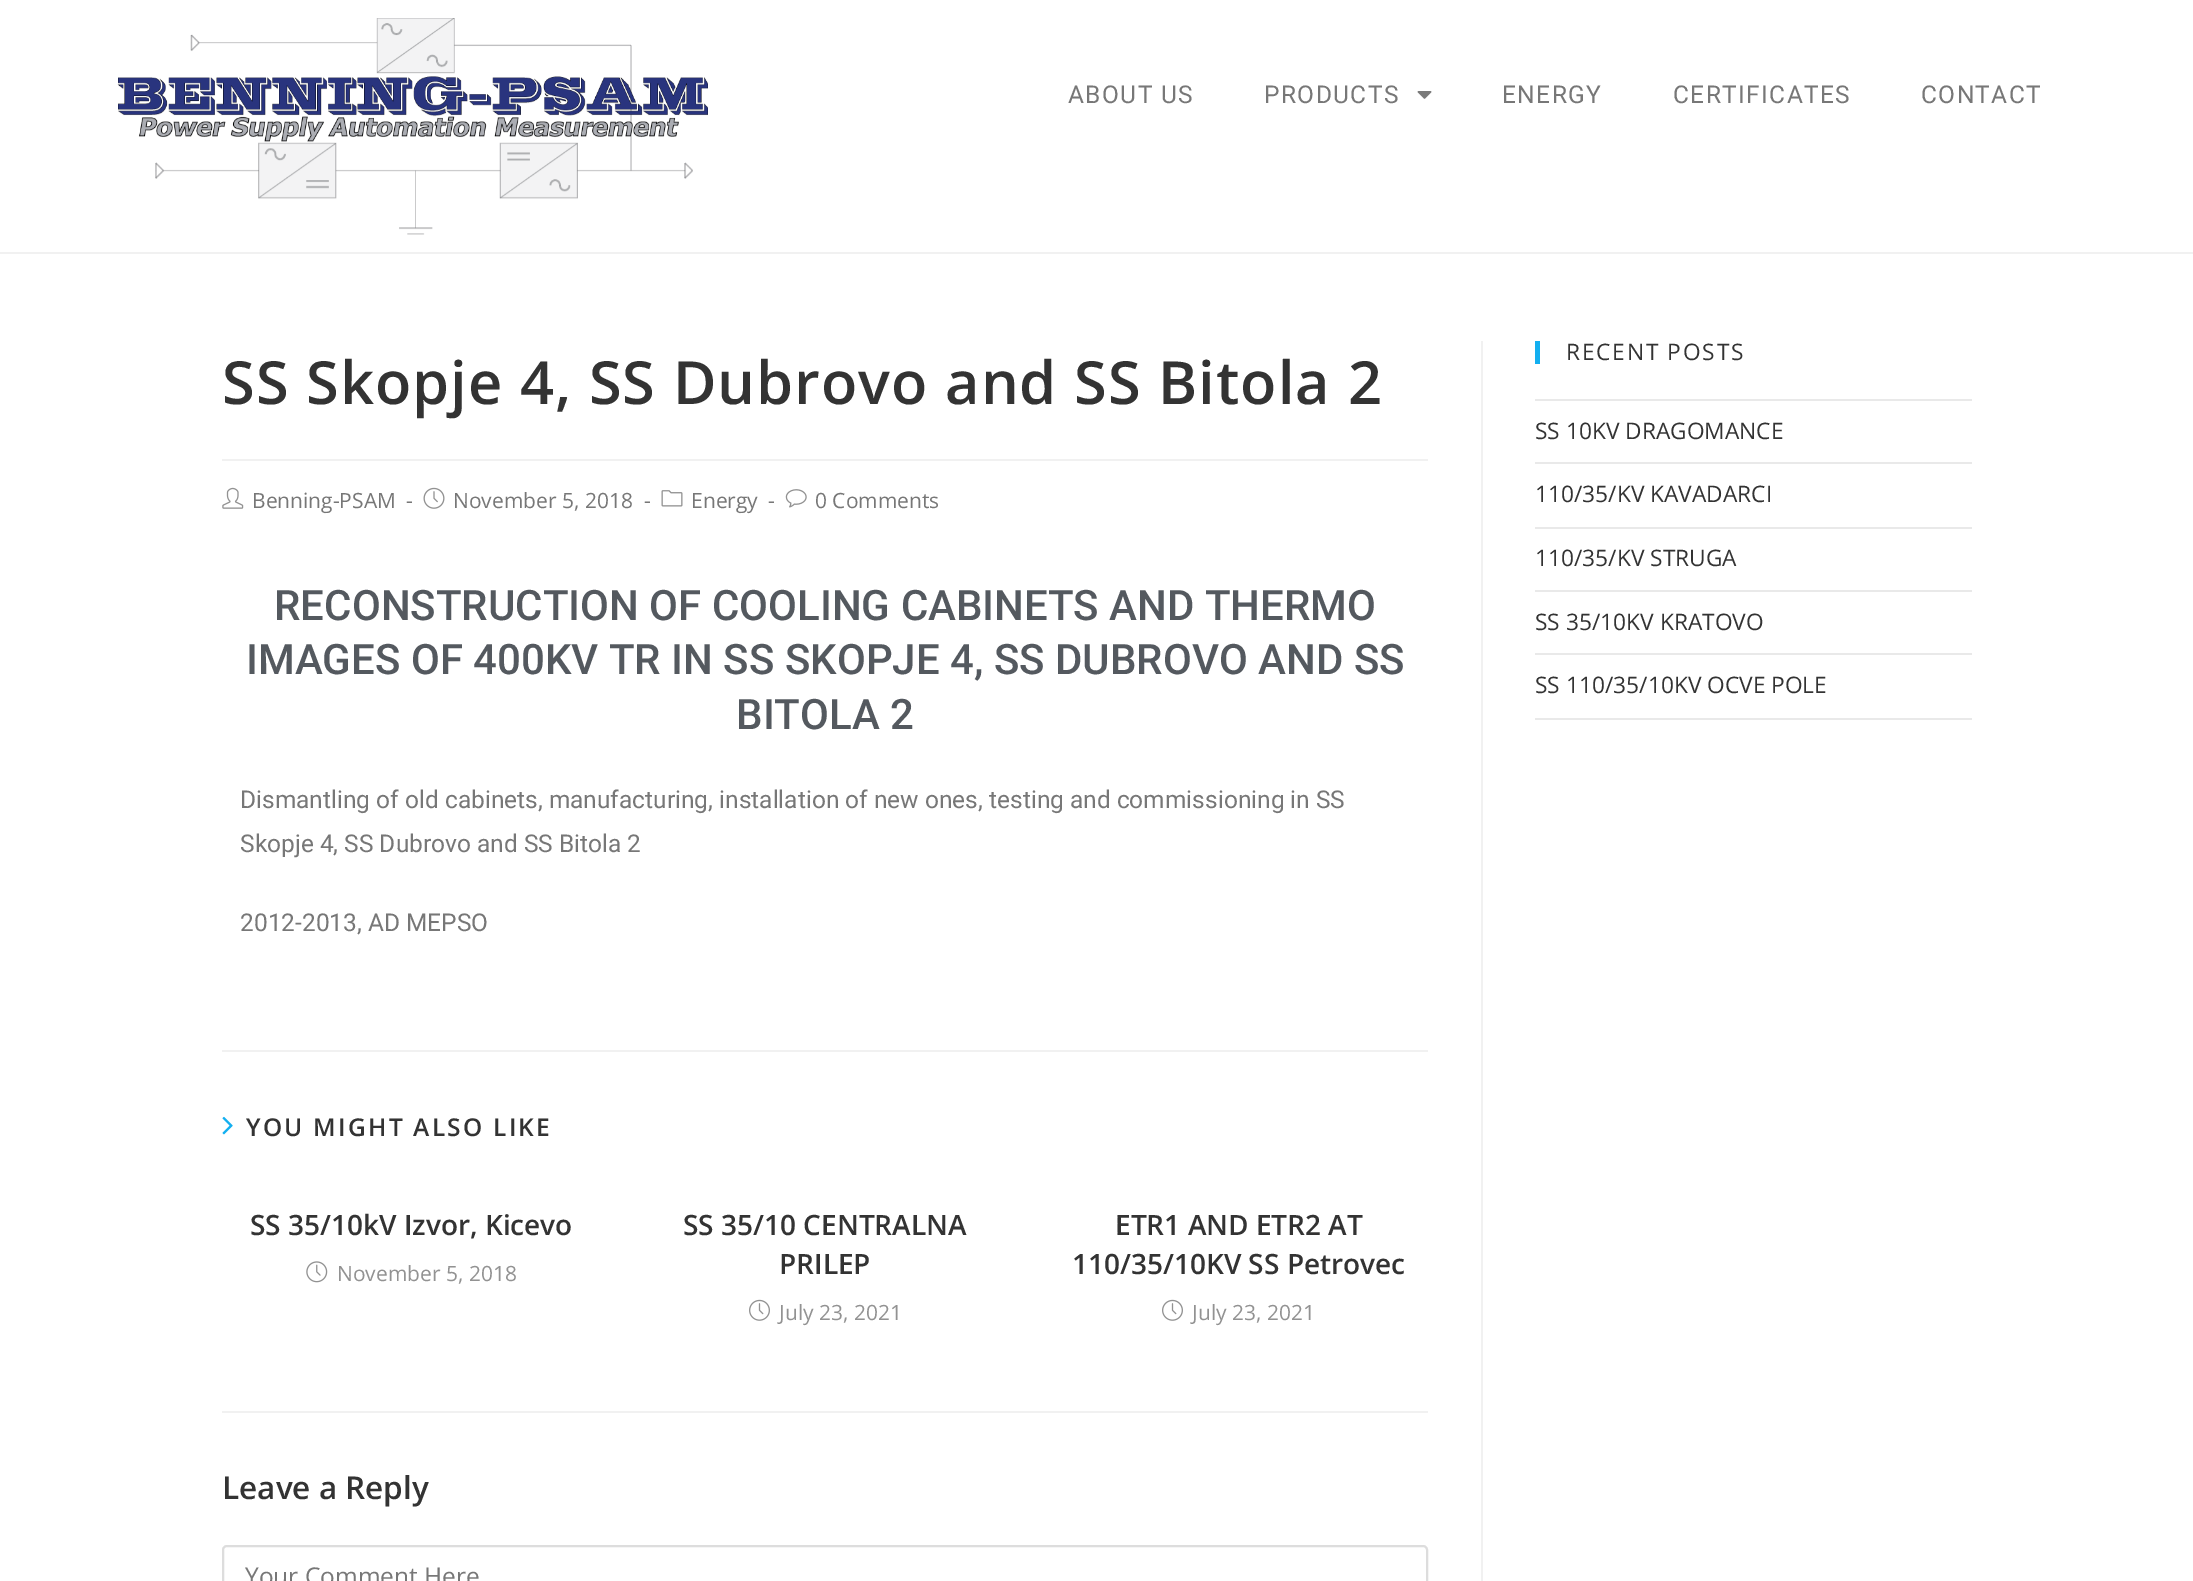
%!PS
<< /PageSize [2193 1581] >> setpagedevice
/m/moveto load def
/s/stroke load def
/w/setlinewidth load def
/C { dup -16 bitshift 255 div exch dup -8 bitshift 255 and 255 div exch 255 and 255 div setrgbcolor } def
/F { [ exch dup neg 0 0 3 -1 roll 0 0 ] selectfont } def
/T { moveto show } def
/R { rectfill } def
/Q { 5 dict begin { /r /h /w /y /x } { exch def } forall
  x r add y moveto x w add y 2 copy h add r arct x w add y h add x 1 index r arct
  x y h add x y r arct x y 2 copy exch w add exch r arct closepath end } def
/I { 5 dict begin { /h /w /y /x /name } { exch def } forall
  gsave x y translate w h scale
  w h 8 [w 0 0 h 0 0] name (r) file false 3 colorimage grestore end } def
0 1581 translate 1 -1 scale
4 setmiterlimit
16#FFFFFF C
0 0 2193 1581 R
16#F1F1F1 C
0 252 2193 2 R
(1.rgb) 117 18 591 217 I
/Roboto-Regular 24.5 F
16#777777 C
1068 103 m 1.4 0 (ABOUT US) ashow
1264 103 m 1.4 0 (PRODUCTS) ashow
(2.rgb) 1417 91 15 8 I
1502 103 m 1.4 0 (ENERGY) ashow
1673 103 m 1.4 0 (CERTIFICATES) ashow
1921 103 m 1.4 0 (CONTACT) ashow
16#F1F1F1 C
1481 341 2 1240 R
222 459 1206 2 R
/OpenSans-SemiBold 59.5 F
16#333333 C
222 404 m 1.05 0 (SS Skopje 4, SS Dubrovo and SS Bitola 2) ashow
(3.rgb) 222 487 22 22 I
/OpenSans-Regular 21 F
16#777777 C
(Benning-PSAM) 252 508 T
(-) 406 508 T
(4.rgb) 423 487 22 22 I
(November 5, 2018) 453 508 T
(-) 644 508 T
(5.rgb) 661 490 22 17 I
(Energy) 691 508 T
(-) 768 508 T
(6.rgb) 785 489 22 19 I
(0 Comments) 815 508 T
/Roboto-Medium 42 F
16#54595F C
(RECONSTRUCTION OF COOLING CABINETS AND THERMO) 274 620 T
(IMAGES OF 400KV TR IN SS SKOPJE 4, SS DUBROVO AND SS) 246 674 T
(BITOLA 2) 736 729 T
/Roboto-Regular 24.5 F
16#777777 C
(Dismantling of old cabinets, manufacturing, installation of new ones, testing and commissioning in SS) 240 808 T
(Skopje 4, SS Dubrovo and SS Bitola 2) 240 852 T
(2012-2013, AD MEPSO) 240 931 T
16#F1F1F1 C
222 1050 1206 2 R
(7.rgb) 222 1116 11 19 I
/OpenSans-SemiBold 24.5 F
16#333333 C
246 1136 m 2.25 0 (YOU MIGHT ALSO LIKE) ashow
/OpenSans-SemiBold 28 F
(SS 35/10kV Izvor, Kicevo) 250 1235 T
(8.rgb) 306 1261 22 22 I
/OpenSans-Regular 21 F
16#929292 C
(November 5, 2018) 337 1281 T
/OpenSans-SemiBold 28 F
16#333333 C
(SS 35/10 CENTRALNA) 683 1235 T
(PRILEP) 779 1274 T
(9.rgb) 749 1299 21 22 I
/OpenSans-Regular 21 F
16#929292 C
(July 23, 2021) 779 1320 T
/OpenSans-SemiBold 28 F
16#333333 C
(ETR1 AND ETR2 AT) 1115 1235 T
(110/35/10KV SS Petrovec) 1072 1274 T
(9.rgb) 1162 1299 21 22 I
/OpenSans-Regular 21 F
16#929292 C
(July 23, 2021) 1192 1320 T
16#F1F1F1 C
222 1411 1206 2 R
/OpenSans-SemiBold 31.5 F
16#333333 C
(Leave a Reply) 222 1499 T
16#DDDDDD C
2 w
223 1546 1204 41 4 Q s
/OpenSans-Regular 24.5 F
16#777777 C
(Your Comment Here) 245 1585 T
16#13AFF0 C
1535 341 5 23 R
/OpenSans-Regular 22.75 F
16#333333 C
1566 360 m 1.75 0 (RECENT POSTS) ashow
16#E9E9E9 C
1535 399 437 2 R
1535 462 437 2 R
16#333333 C
(SS 10KV DRAGOMANCE) 1535 439 T
16#E9E9E9 C
1535 527 437 2 R
16#333333 C
(110/35/KV KAVADARCI) 1535 502 T
16#E9E9E9 C
1535 590 437 2 R
16#333333 C
(110/35/KV STRUGA) 1535 566 T
16#E9E9E9 C
1535 653 437 2 R
16#333333 C
(SS 35/10KV KRATOVO) 1535 630 T
16#E9E9E9 C
1535 718 437 2 R
16#333333 C
(SS 110/35/10KV OCVE POLE) 1535 693 T
showpage
